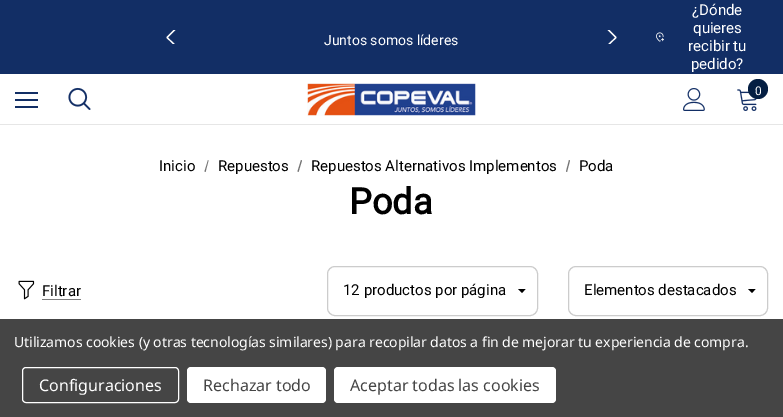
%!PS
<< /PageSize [783 417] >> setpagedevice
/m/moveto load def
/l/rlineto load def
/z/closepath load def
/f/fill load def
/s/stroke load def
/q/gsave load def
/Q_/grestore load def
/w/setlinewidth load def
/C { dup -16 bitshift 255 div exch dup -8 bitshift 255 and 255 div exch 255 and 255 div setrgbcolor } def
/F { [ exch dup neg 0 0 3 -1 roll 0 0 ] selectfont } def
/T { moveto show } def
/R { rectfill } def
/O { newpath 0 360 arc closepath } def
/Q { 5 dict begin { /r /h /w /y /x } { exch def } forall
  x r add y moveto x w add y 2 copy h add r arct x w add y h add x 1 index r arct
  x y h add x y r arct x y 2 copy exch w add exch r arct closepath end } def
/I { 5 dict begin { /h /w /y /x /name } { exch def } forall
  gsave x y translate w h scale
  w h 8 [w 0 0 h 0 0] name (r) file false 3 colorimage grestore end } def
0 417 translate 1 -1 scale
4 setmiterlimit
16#FFFFFF C
0 0 783 417 R
16#122E65 C
0 0 783 74 R
q
166 30 14 14 rectclip
16#FFFFFF C
1.2 w
1 setlinecap
1 setlinejoin
179 25.5 m -12 12 l 12 11.5 l s
Q_
/Roboto-Regular 14 F
16#FFFFFF C
(Juntos somos líderes) 324 45 T
q
603 30 14 14 rectclip
1.2 w
1 setlinecap
1 setlinejoin
604 25.5 m 12 12 l -12 11.5 l s
Q_
(1.rgb) 656 32 8 10 I
/Roboto-Regular 15 F
(¿Dónde) 692 15 T
(quieres) 693 33 T
(recibir tu) 688 51 T
(pedido?) 691 69 T
16#E6E6E6 C
0 124 783 1 R
16#122E65 C
15 99 23 2 R
15 92 23 2 R
15 106 23 2 R
(2.rgb) 68 87 23 23 I
(3.rgb) 307 83 169 33 I
(4.rgb) 683 88 22 23 I
(5.rgb) 737 89 20 22 I
16#051F43 C
758 89 10 O f
/Roboto-Regular 12 F
16#FFFFFF C
(0) 755 95 T
/Roboto-Regular 15 F
16#000000 C
(Inicio) 159 171 T
16#757575 C
208 160 m .5 .5 l -3 11.5 l -1 -.5 l z f
16#000000 C
(Repuestos) 218 171 T
16#757575 C
301 160 m 1 .5 l -3.5 11.5 l -1 -.5 l z f
16#000000 C
(Repuestos Alternativos Implementos) 311 171 T
16#757575 C
569 160 m 1 .5 l -3 11.5 l -1 -.5 l z f
16#000000 C
(Poda) 579 171 T
/Roboto-Bold 36 F
(Poda) 349 214 T
(6.rgb) 18 280 17 20 I
16#7F7F7F C
42 299 39 1 R
/Roboto-Regular 15 F
16#000000 C
(Filtrar) 42 296 T
525.5 289 m -3.5 4 l -4 -4 l z f
16#CCCCCC C
327.5 266.5 210 49 7.5 Q s
q
343 283 164 15 rectclip
16#000000 C
(12 productos por página) 343 295 T
Q_
16#000000 C
755.5 289 m -3.5 4 l -4 -4 l z f
16#CCCCCC C
568.5 266.5 199 49 7.5 Q s
16#000000 C
(Elementos destacados) 584 295 T
16#454545 C
0 319 783 98 R
/NotoSans-Regular 14 F
16#FFFFFF C
14 347 m -.05 0 (Utilizamos cookies \(y otras tecnologías similares\) para recopilar datos a fin de mejorar tu experiencia de compra.) ashow
22.5 367.5 156 35 3.5 Q s
/NotoSans-Regular 16 F
(Configuraciones) 39 391 T
187 367 139 36 4 Q f
16#454545 C
(Rechazar todo) 203 391 T
16#FFFFFF C
334 367 222 36 4 Q f
16#454545 C
(Aceptar todas las cookies) 350 391 T
showpage
